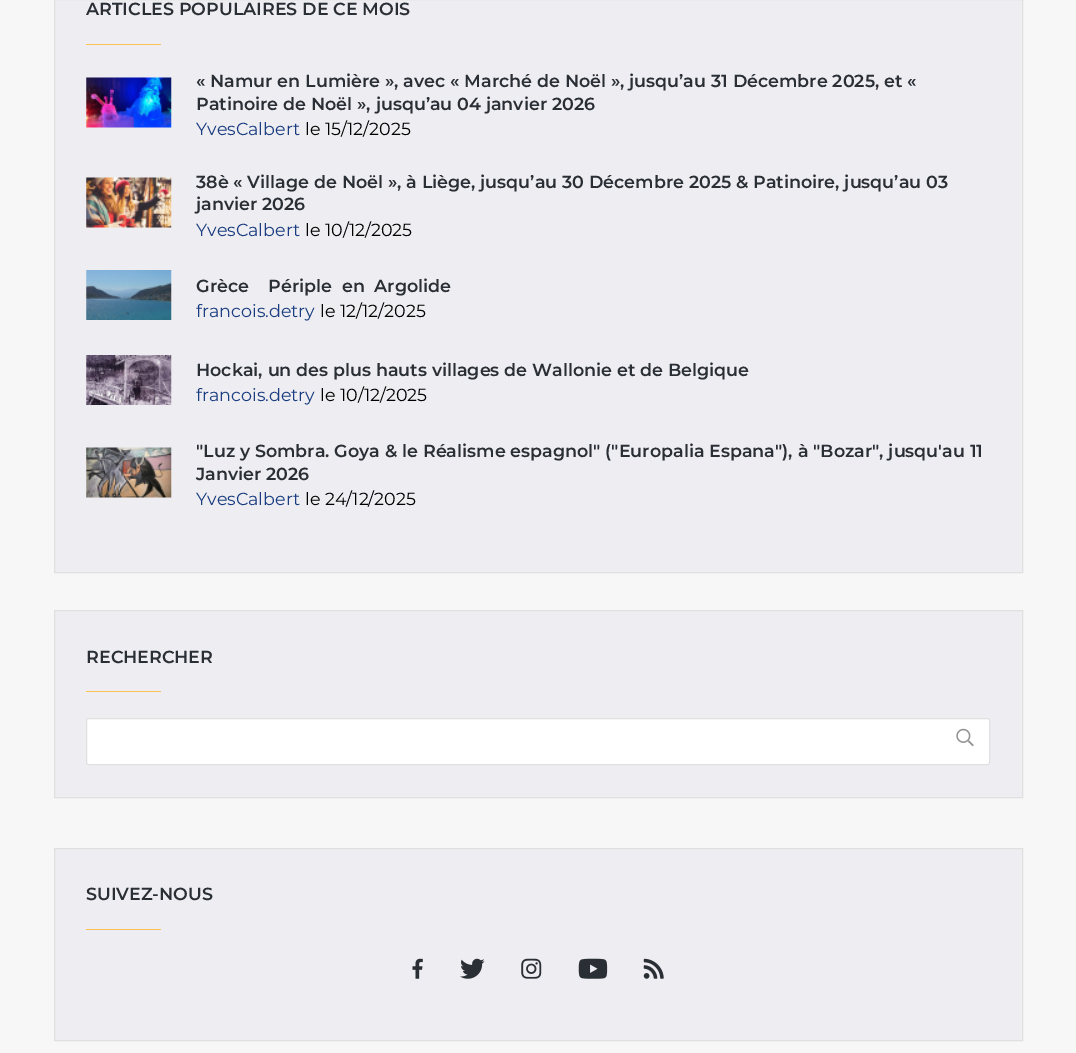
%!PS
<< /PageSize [1076 1053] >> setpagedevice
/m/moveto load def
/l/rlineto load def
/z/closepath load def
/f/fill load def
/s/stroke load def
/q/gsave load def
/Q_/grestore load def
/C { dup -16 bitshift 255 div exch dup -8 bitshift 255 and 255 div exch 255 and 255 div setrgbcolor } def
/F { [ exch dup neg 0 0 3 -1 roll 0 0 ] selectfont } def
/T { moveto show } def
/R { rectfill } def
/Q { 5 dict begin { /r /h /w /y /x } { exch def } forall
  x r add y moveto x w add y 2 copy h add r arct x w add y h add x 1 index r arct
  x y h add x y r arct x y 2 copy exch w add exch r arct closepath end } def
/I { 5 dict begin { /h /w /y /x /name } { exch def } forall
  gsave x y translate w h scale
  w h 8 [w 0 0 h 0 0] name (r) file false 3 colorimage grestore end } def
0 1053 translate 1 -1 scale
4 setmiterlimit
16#F7F7F7 C
0 0 1076 1053 R
16#EEEDF1 C
54.5 -.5 m 968 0 l 0 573 l -968 0 l z q f Q_
16#E1E0E0 C
s
/Montserrat-SemiBold 17.5 F
16#2A2F36 C
(ARTICLES POPULAIRES DE CE MOIS) 86 15 T
16#FDC153 C
86 44 75 1 R
(1.rgb) 86 77 86 51 I
16#2A2F36 C
(« Namur en Lumière », avec « Marché de Noël », jusqu’au 31 Décembre 2025, et «) 196 87 T
(Patinoire de Noël », jusqu’au 04 janvier 2026) 196 110 T
/Montserrat-Regular 17.5 F
16#193D80 C
(YvesCalbert) 196 135 T
16#000000 C
(le 15/12/2025) 305 135 T
(2.rgb) 86 177 86 51 I
/Montserrat-SemiBold 17.5 F
16#2A2F36 C
(38è « Village de Noël », à Liège, jusqu’au 30 Décembre 2025 & Patinoire, jusqu’au 03) 196 188 T
(janvier 2026) 196 210 T
/Montserrat-Regular 17.5 F
16#193D80 C
(YvesCalbert) 196 236 T
16#000000 C
(le 10/12/2025) 305 236 T
(3.rgb) 86 270 86 50 I
/Montserrat-SemiBold 17.5 F
16#2A2F36 C
(Grèce    Périple  en  Argolide) 196 292 T
/Montserrat-Regular 17.5 F
16#193D80 C
(francois.detry) 196 317 T
16#000000 C
(le 12/12/2025) 320 317 T
(4.rgb) 86 355 86 50 I
/Montserrat-SemiBold 17.5 F
16#2A2F36 C
(Hockai, un des plus hauts villages de Wallonie et de Belgique) 196 376 T
/Montserrat-Regular 17.5 F
16#193D80 C
(francois.detry) 196 401 T
16#000000 C
(le 10/12/2025) 320 401 T
(5.rgb) 86 447 86 51 I
/Montserrat-SemiBold 17.5 F
16#2A2F36 C
("Luz y Sombra. Goya & le Réalisme espagnol" \("Europalia Espana"\), à "Bozar", jusqu'au 11) 196 457 T
(Janvier 2026) 196 480 T
/Montserrat-Regular 17.5 F
16#193D80 C
(YvesCalbert) 196 505 T
16#000000 C
(le 24/12/2025) 305 505 T
16#EEEDF1 C
54.5 610.5 m 968 0 l 0 187 l -968 0 l z q f Q_
16#E1E0E0 C
s
/Montserrat-SemiBold 17.5 F
16#2A2F36 C
(RECHERCHER) 86 663 T
16#FDC153 C
86 691 75 1 R
16#FFFFFF C
86.5 718.5 903 46 2 Q q f Q_
16#E1E0E0 C
s
(6.rgb) 956 728 18 19 I
16#EEEDF1 C
54.5 848.5 m 968 0 l 0 192 l -968 0 l z q f Q_
16#E1E0E0 C
s
16#2A2F36 C
(SUIVEZ-NOUS) 86 900 T
16#FDC153 C
86 929 75 1 R
(7.rgb) 412 958 11 21 I
(8.rgb) 460 958 25 21 I
(9.rgb) 521 958 21 21 I
(10.rgb) 578 958 30 21 I
(11.rgb) 643 958 21 21 I
showpage
